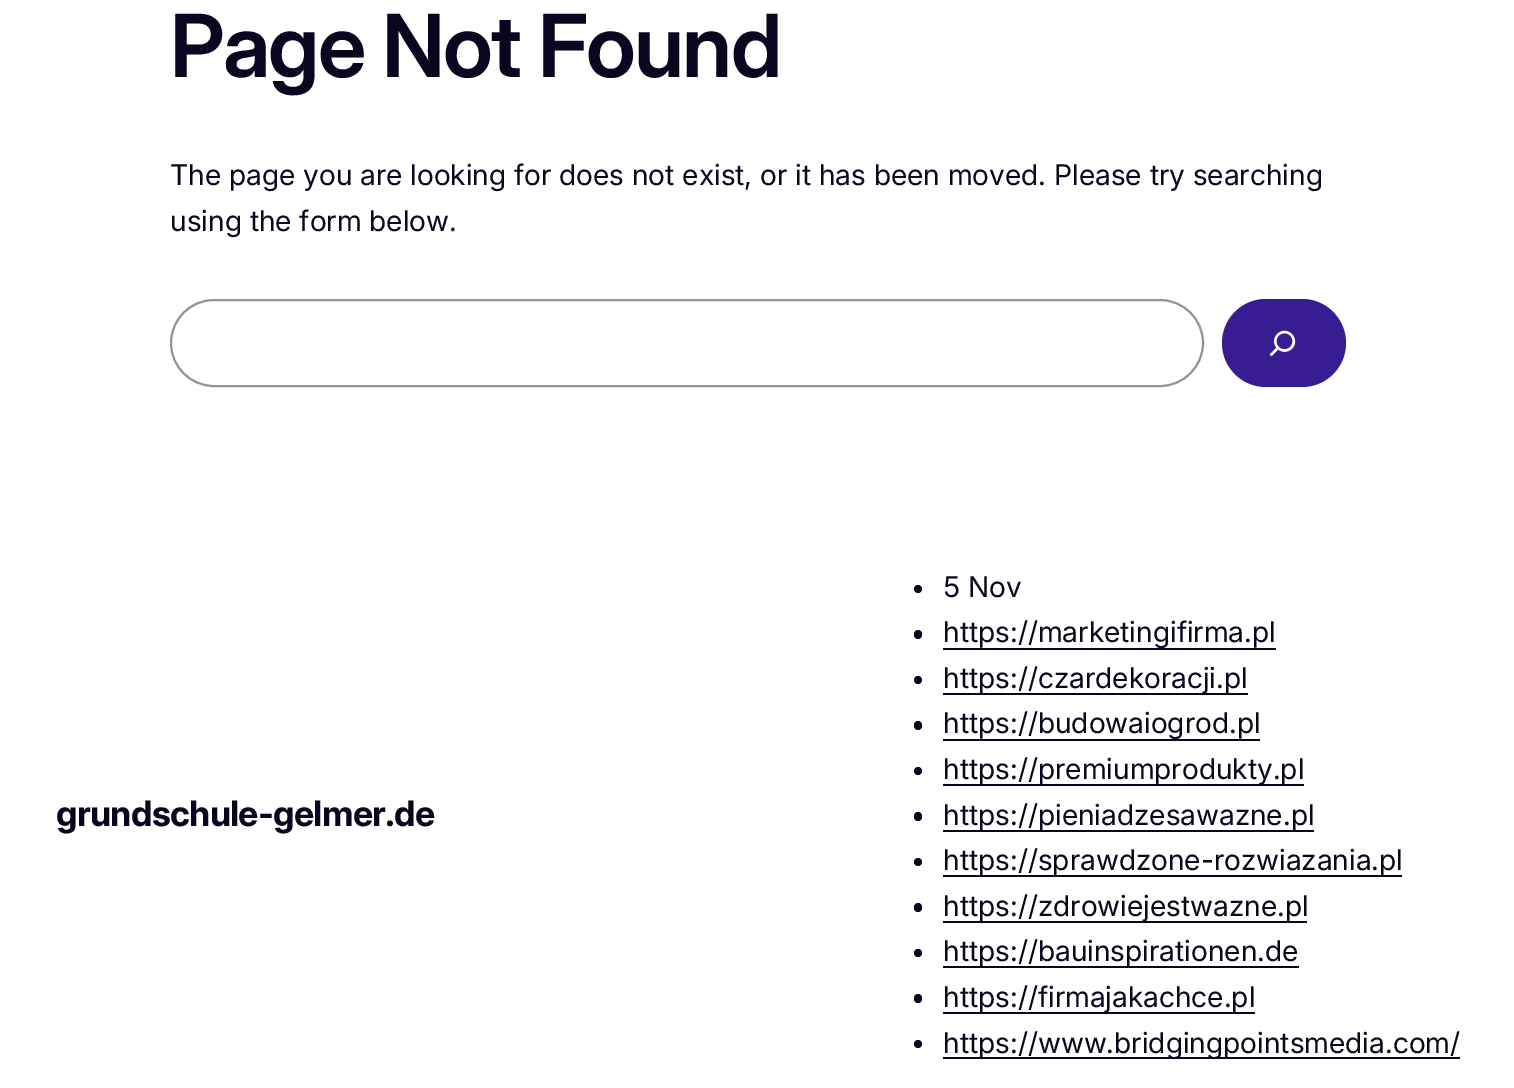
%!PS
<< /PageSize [1514 1088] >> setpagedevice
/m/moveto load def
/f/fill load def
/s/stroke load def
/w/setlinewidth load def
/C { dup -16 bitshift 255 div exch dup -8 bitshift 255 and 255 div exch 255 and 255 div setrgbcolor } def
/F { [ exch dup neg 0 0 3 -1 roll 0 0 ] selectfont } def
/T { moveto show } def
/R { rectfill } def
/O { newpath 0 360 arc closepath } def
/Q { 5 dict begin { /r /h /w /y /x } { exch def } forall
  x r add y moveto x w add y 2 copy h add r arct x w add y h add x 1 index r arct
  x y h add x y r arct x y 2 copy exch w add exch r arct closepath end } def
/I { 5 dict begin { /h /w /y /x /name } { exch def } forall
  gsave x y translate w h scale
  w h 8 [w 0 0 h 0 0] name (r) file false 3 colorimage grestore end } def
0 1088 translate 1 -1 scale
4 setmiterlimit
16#FFFFFF C
0 0 1514 1088 R
/Inter-SemiBold 87 F
16#0B0620 C
170 77 m -1.75 0 (Page Not Found) ashow
/Inter-Regular 28.5 F
(The page you are looking for does not exist, or it has been moved. Please try searching) 170 185 T
(using the form below.) 170 231 T
16#949494 C
2 w
171 300 1032 86 43 Q s
16#381D92 C
1222 299 124 88 44 Q f
(1.rgb) 1269 330 27 27 I
/Inter-Bold 35 F
16#0B0620 C
56 826 m -.7 0 (grundschule-gelmer.de) ashow
918 589 4 O f
/Inter-Regular 28.5 F
(5 Nov) 943 597 T
914 630 8 9 4 Q f
943 648 333 2 R
(https://marketingifirma.pl) 943 642 T
918 680 4 O f
943 693 305 2 R
(https://czardekoracji.pl) 943 688 T
914 721 8 9 4 Q f
943 739 317 2 R
(https://budowaiogrod.pl) 943 733 T
918 771 4 O f
943 784 361 2 R
(https://premiumprodukty.pl) 943 779 T
914 812 8 9 4 Q f
943 830 371 2 R
(https://pieniadzesawazne.pl) 943 825 T
918 862 4 O f
943 875 459 2 R
(https://sprawdzone-rozwiazania.pl) 943 870 T
914 903 8 9 4 Q f
943 921 364 2 R
(https://zdrowiejestwazne.pl) 943 916 T
918 953 4 O f
943 966 356 2 R
(https://bauinspirationen.de) 943 961 T
914 994 8 9 4 Q f
943 1012 312 2 R
(https://firmajakachce.pl) 943 1007 T
918 1044 4 O f
943 1057 517 2 R
(https://www.bridgingpointsmedia.com/) 943 1053 T
showpage
